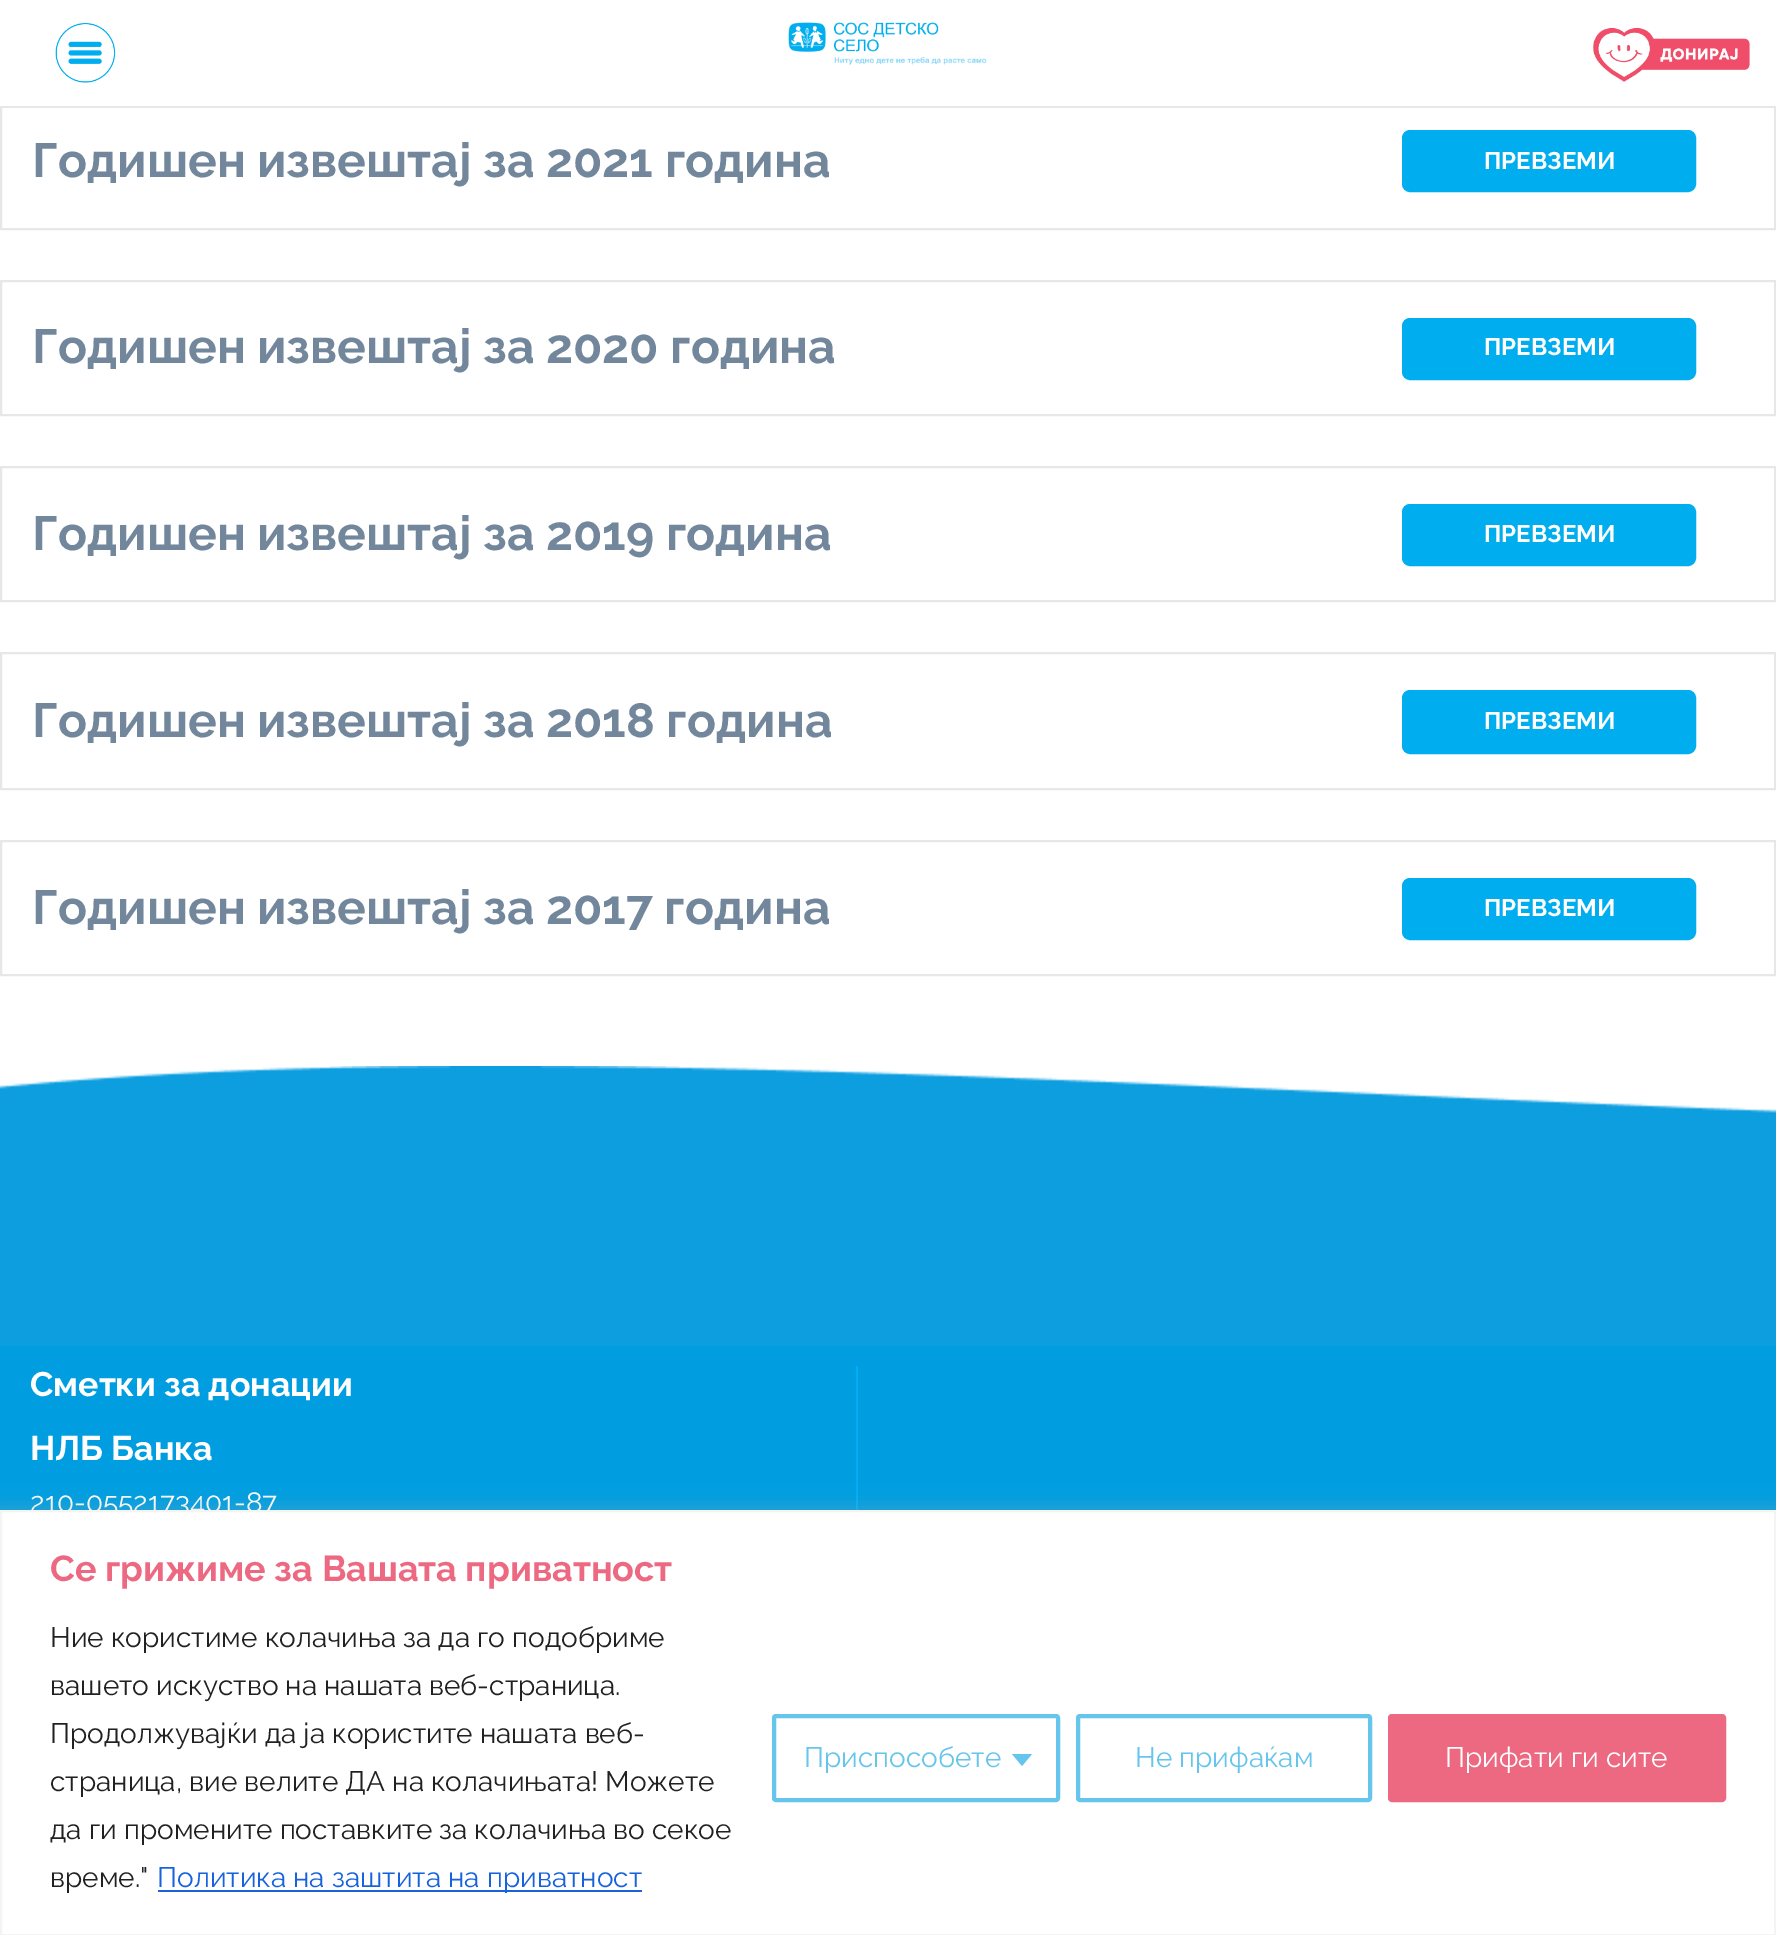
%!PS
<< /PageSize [1776 1935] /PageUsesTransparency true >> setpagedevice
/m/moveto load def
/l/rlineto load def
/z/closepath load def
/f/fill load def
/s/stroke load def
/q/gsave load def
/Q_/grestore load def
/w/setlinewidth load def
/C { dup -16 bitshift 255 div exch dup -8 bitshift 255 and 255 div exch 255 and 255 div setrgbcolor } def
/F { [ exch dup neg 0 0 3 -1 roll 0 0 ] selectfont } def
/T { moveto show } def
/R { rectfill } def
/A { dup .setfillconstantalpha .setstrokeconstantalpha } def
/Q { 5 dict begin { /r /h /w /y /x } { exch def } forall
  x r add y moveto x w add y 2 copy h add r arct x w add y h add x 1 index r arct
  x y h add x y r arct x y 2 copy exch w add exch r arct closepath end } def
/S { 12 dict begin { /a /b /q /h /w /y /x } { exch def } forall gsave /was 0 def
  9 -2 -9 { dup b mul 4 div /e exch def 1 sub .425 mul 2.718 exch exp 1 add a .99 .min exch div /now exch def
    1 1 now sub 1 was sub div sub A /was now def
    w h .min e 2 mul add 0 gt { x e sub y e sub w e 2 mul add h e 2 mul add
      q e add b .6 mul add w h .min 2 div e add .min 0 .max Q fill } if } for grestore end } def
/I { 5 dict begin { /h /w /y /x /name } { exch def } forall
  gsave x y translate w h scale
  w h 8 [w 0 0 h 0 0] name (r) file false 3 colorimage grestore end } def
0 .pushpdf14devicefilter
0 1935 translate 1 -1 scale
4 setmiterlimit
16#FFFFFF C
0 0 1776 1935 R
16#E6E7E8 C
2 w
1 93 1774 136 rectstroke
16#FFFFFF C
0 92 1776 14 R
16#E7E7E7 C
0 106 1776 2 R
(1.rgb) 55 23 61 60 I
(2.rgb) 788 22 199 43 I
(3.rgb) 1593 27 157 55 I
/Raleway-Bold 48 F
16#73879C C
(Годишен извештај за 2021 година) 32 177 T
16#00AEEF C
1403 131 292 60 7 Q q f Q_
s
/Raleway-Bold 24 F
16#FFFFFF C
(ПРЕВЗЕМИ) 1484 169 T
16#E6E7E8 C
1 281 1774 134 rectstroke
/Raleway-Bold 48 F
16#73879C C
(Годишен извештај за 2020 година) 32 363 T
16#00AEEF C
1403 319 292 60 7 Q q f Q_
s
/Raleway-Bold 24 F
16#FFFFFF C
(ПРЕВЗЕМИ) 1484 355 T
16#E6E7E8 C
1 467 1774 134 rectstroke
/Raleway-Bold 48 F
16#73879C C
(Годишен извештај за 2019 година) 32 550 T
16#00AEEF C
1403 505 292 60 7 Q q f Q_
s
/Raleway-Bold 24 F
16#FFFFFF C
(ПРЕВЗЕМИ) 1484 542 T
16#E6E7E8 C
1 653 1774 136 rectstroke
/Raleway-Bold 48 F
16#73879C C
(Годишен извештај за 2018 година) 32 737 T
16#00AEEF C
1403 691 292 62 7 Q q f Q_
s
/Raleway-Bold 24 F
16#FFFFFF C
(ПРЕВЗЕМИ) 1484 729 T
16#E6E7E8 C
1 841 1774 134 rectstroke
/Raleway-Bold 48 F
16#73879C C
(Годишен извештај за 2017 година) 32 924 T
16#00AEEF C
1403 879 292 60 7 Q q f Q_
s
/Raleway-Bold 24 F
16#FFFFFF C
(ПРЕВЗЕМИ) 1484 916 T
16#009EE0 C
0 1346 1776 164 R
(4.rgb) 0 1066 1776 280 I
/Raleway-Bold 34 F
16#FFFFFF C
(Сметки за донации) 30 1396 T
16#00AEF6 C
856 1366 2 144 R
16#FFFFFF C
(НЛБ Банка) 30 1460 T
/Raleway-Regular 28 F
(210-0552173401-87) 30 1512 T
16#ACABAB C
0 1508 1776 426 0 10 .3 S
16#FFFFFF C
1 1511 m 1774 0 l 0 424 l -1774 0 l z q f Q_
16#F4F4F4 C
s
/Raleway-Bold 36 F
16#EC6981 C
(Се грижиме за Вашата приватност) 50 1581 T
/Raleway-Regular 28 F
16#212121 C
(Ние користиме колачиња за да го подобриме) 50 1647 T
(вашето искуство на нашата веб-страница.) 50 1695 T
(Продолжувајќи да ја користите нашата веб-) 50 1743 T
(страница, вие велите ДА на колачињата! Можете) 50 1791 T
(да ги промените поставките за колачиња во секое) 50 1839 T
(време.") 50 1887 T
16#1863DC C
158 1890 484 2 R
(Политика на заштита на приватност) 157 1887 T
16#66C5EC C
4 w
774 1716 284 84 2 Q s
(Приспособете) 804 1767 T
1012 1754 m 20 0 l -10 12 l z f
1078 1716 292 84 2 Q s
(Не прифаќам) 1135 1767 T
16#EC6981 C
1390 1716 334 84 2 Q q f Q_
s
16#FFFFFF C
(Прифати ги сите) 1445 1767 T
.poppdf14devicefilter showpage
